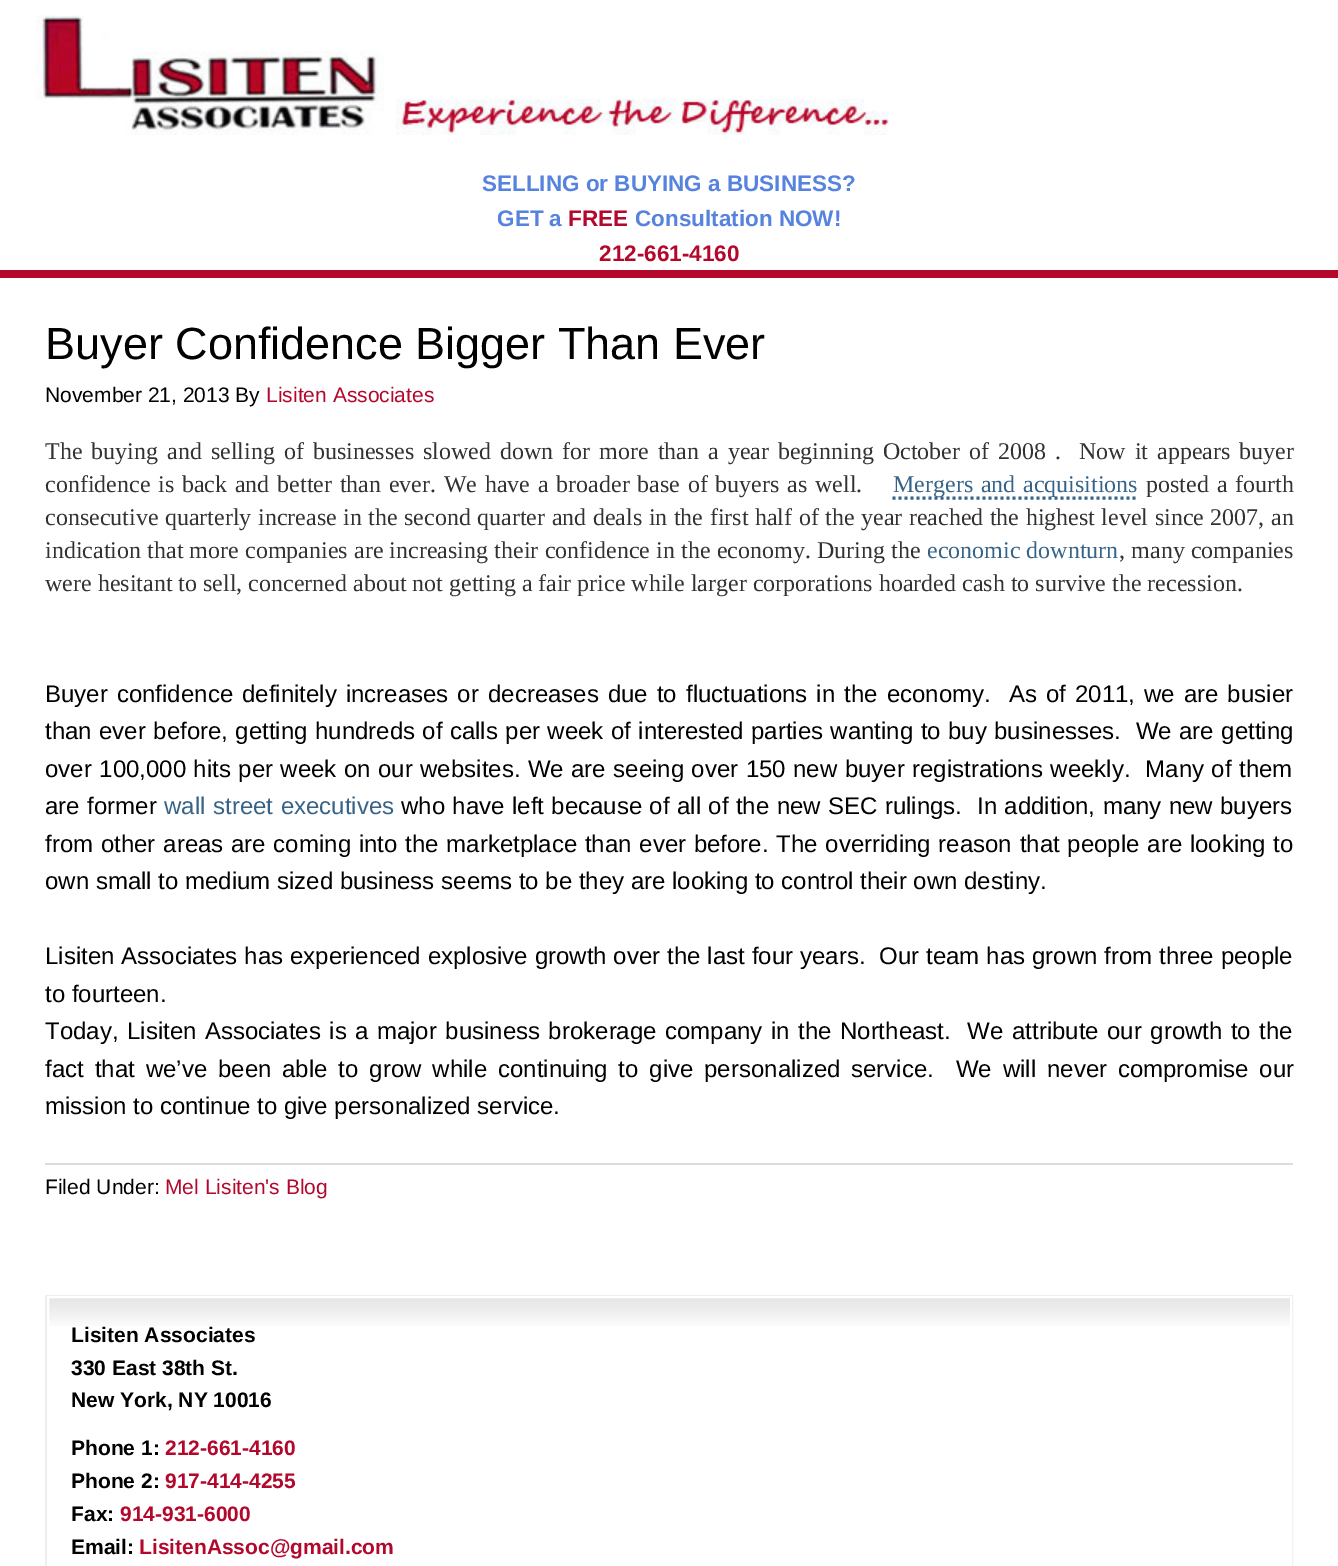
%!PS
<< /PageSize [1338 1566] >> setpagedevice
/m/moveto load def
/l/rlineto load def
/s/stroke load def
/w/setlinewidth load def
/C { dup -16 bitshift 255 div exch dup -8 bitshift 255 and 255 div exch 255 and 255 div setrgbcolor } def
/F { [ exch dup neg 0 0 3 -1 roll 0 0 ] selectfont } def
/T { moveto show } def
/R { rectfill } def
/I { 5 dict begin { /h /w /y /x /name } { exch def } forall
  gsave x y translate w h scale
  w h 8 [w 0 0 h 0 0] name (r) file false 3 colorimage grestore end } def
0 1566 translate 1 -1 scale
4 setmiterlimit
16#FFFFFF C
0 0 1338 1566 R
(1.rgb) 36 15 853 120 I
/LiberationSans-Bold 22.5 F
16#5683DE C
(SELLING or BUYING a BUSINESS?) 482 191 T
(GET a) 497 226 T
16#B3072C C
(FREE) 568 226 T
16#5683DE C
(Consultation NOW!) 635 226 T
16#B3072C C
(212-661-4160) 599 261 T
0 270 1338 8 R
/LiberationSans-Regular 45 F
16#000000 C
(Buyer Confidence Bigger Than Ever) 45 359 T
/LiberationSans-Regular 21 F
(November 21, 2013 By) 45 402 T
16#B3072C C
(Lisiten Associates) 266 402 T
/LiberationSerif-Regular 24 F
16#333132 C
45 459 m 3 0 32 (The buying and selling of businesses slowed down for more than a year beginning October of 2008 .  Now it appears buyer) widthshow
45 492 m 1.75 0 32 (confidence is back and better than ever. We have a broader base of buyers as well.) widthshow
16#366388 C
3 w
[3 3] 0 setdash
892.5 498 m 246 0 l s
893 492 m 1.75 0 32 (Mergers and acquisitions) widthshow
16#333132 C
1146 492 m 2 0 32 (posted a fourth) widthshow
45 525 m .5 0 32 (consecutive quarterly increase in the second quarter and deals in the first half of the year reached the highest level since 2007, an) widthshow
45 558 m .25 0 32 (indication that more companies are increasing their confidence in the economy. During the) widthshow
16#366388 C
(economic downturn) 927 558 T
16#333132 C
1119 558 m .25 0 32 (, many companies) widthshow
(were hesitant to sell, concerned about not getting a fair price while larger corporations hoarded cash to survive the recession.) 45 591 T
/LiberationSans-Regular 24 F
16#000000 C
45 702 m 2.4 0 32 (Buyer confidence definitely increases or decreases due to fluctuations in the economy.  As of 2011, we are busier) widthshow
45 739 m .75 0 32 (than ever before, getting hundreds of calls per week of interested parties wanting to buy businesses.  We are getting) widthshow
45 777 m .8 0 32 (over 100,000 hits per week on our websites. We are seeing over 150 new buyer registrations weekly.  Many of them) widthshow
45 814 m 1 0 32 (are former) widthshow
16#366388 C
164 814 m 1 0 32 (wall street executives) widthshow
16#000000 C
401 814 m .75 0 32 (who have left because of all of the new SEC rulings.  In addition, many new buyers) widthshow
45 852 m 1.1 0 32 (from other areas are coming into the marketplace than ever before. The overriding reason that people are looking to) widthshow
(own small to medium sized business seems to be they are looking to control their own destiny.) 45 889 T
45 964 m .25 0 32 (Lisiten Associates has experienced explosive growth over the last four years.  Our team has grown from three people) widthshow
(to fourteen.) 45 1002 T
45 1039 m 1.8 0 32 (Today, Lisiten Associates is a major business brokerage company in the Northeast.  We attribute our growth to the) widthshow
45 1077 m 4.25 0 32 (fact that we’ve been able to grow while continuing to give personalized service.  We will never compromise our) widthshow
(mission to continue to give personalized service.) 45 1114 T
16#DDDDDD C
45 1163 1248 2 R
/LiberationSans-Regular 21 F
16#000000 C
(Filed Under:) 45 1194 T
16#B3072C C
(Mel Lisiten's Blog) 165 1194 T
(2.rgb) 49 1298 1241 28 I
16#EEEEEE C
2 w
[] 0 setdash
46 1296 1246 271 rectstroke
16#FFFFFF C
48 1297 1243 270 rectstroke
/LiberationSans-Bold 21 F
16#000000 C
(Lisiten Associates) 71 1342 T
(330 East 38th St.) 71 1375 T
(New York, NY 10016) 71 1407 T
(Phone 1:) 71 1455 T
16#B3072C C
(212-661-4160) 165 1455 T
16#000000 C
(Phone 2:) 71 1488 T
16#B3072C C
(917-414-4255) 165 1488 T
16#000000 C
(Fax:) 71 1521 T
16#B3072C C
(914-931-6000) 120 1521 T
16#000000 C
(Email:) 71 1554 T
16#B3072C C
(LisitenAssoc@gmail.com) 139 1554 T
showpage
